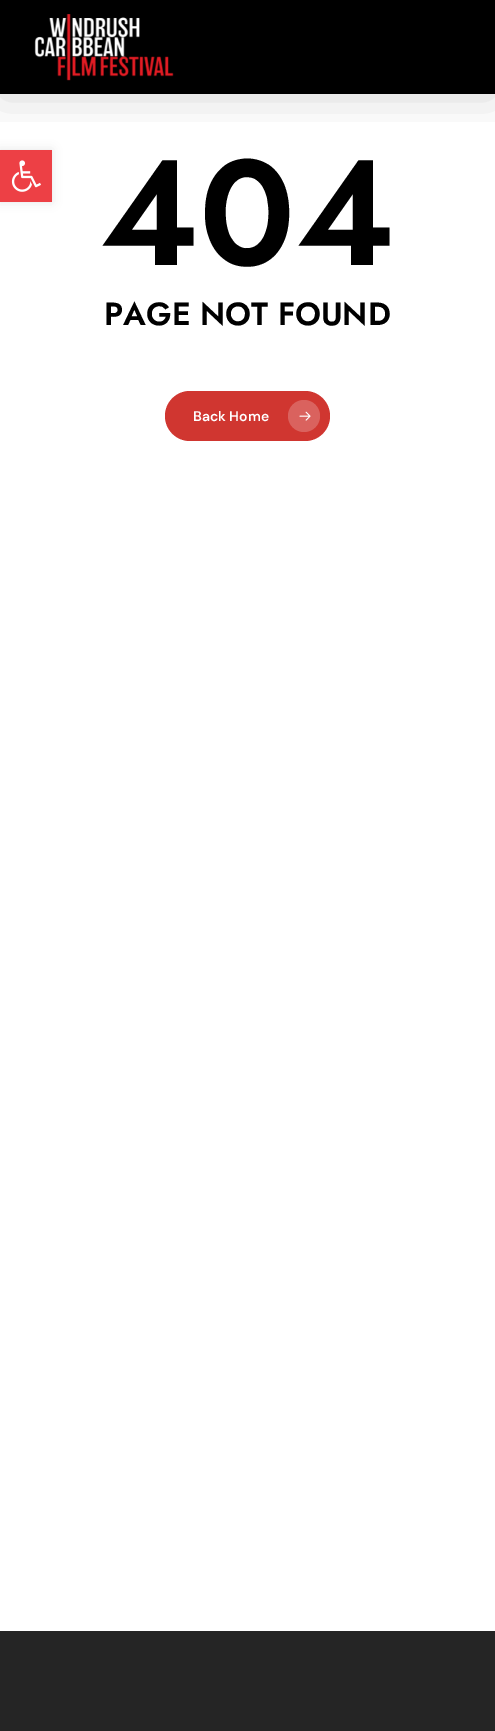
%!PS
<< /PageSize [495 1731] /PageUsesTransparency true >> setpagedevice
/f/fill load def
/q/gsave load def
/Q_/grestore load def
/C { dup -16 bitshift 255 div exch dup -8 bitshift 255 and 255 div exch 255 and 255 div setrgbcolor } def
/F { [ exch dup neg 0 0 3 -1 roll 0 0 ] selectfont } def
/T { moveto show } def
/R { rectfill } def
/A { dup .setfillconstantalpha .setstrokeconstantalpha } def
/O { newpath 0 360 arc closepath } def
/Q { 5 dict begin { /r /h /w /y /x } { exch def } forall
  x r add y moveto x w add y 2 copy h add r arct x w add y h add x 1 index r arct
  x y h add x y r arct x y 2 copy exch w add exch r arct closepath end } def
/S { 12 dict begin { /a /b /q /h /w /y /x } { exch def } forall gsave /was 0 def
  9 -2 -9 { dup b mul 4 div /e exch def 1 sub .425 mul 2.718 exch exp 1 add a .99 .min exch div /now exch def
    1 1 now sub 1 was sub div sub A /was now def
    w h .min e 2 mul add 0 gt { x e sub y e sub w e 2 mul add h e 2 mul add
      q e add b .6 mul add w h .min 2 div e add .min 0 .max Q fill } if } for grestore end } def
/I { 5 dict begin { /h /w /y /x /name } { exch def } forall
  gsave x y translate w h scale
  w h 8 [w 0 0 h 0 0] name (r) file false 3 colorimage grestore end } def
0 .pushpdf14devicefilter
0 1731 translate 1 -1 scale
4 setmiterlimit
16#FFFFFF C
0 0 495 1731 R
16#000000 C
0 150 52 52 0 5 .1 S
0 0 495 94 R
q
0 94 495 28 rectclip
0 3 495 94 0 22.5 .15 S
Q_
16#ED4045 C
0 150 52 52 R
(1.rgb) 11 160 30 32 I
(2.rgb) 34 14 140 67 I
/Jost-SemiBold 150 F
16#000000 C
(404) 100 265 T
/Jost-SemiBold 32 F
(PAGE NOT FOUND) 104 325 T
16#D03630 C
165 391 165 50 25 Q f
/DMSans-SemiBold 14 F
16#FFFFFF C
(Back Home) 193 421 T
16#DA625E C
304 416 16 O f
(3.rgb) 299 411 12 10 I
16#252525 C
0 1631 495 100 R
.poppdf14devicefilter showpage
